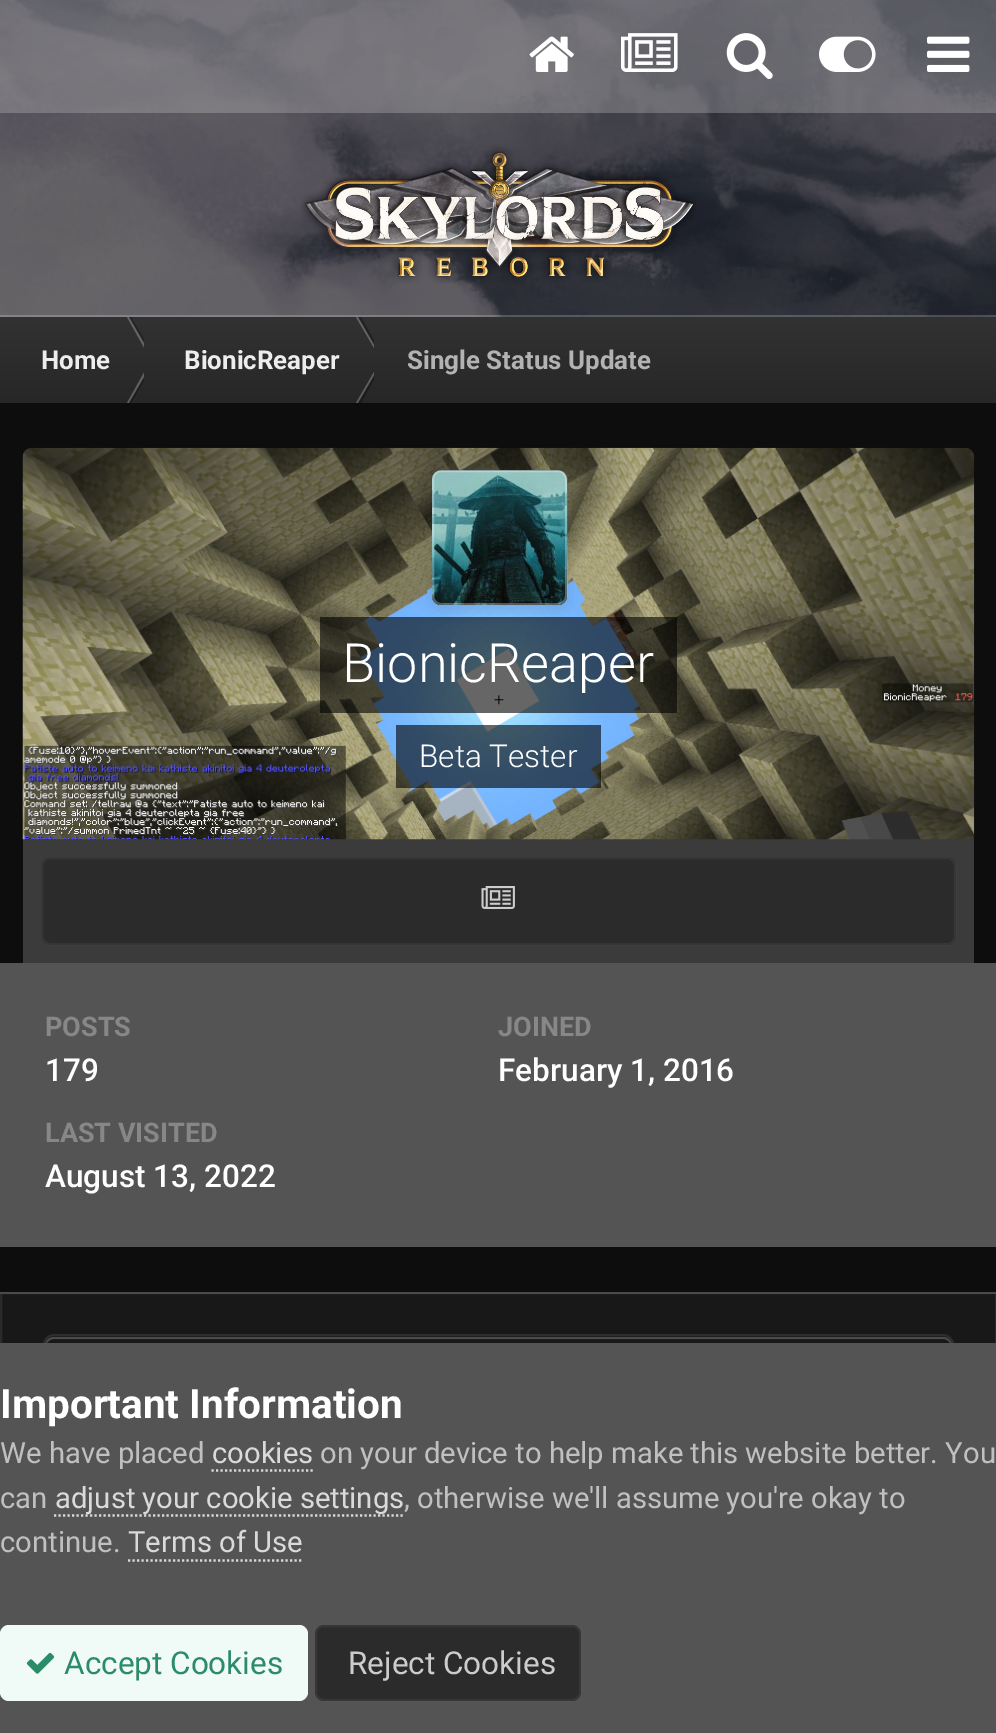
%!PS
<< /PageSize [996 1733] /PageUsesTransparency true >> setpagedevice
/m/moveto load def
/l/rlineto load def
/c/rcurveto load def
/z/closepath load def
/f/fill load def
/s/stroke load def
/q/gsave load def
/Q_/grestore load def
/w/setlinewidth load def
/C { dup -16 bitshift 255 div exch dup -8 bitshift 255 and 255 div exch 255 and 255 div setrgbcolor } def
/F { [ exch dup neg 0 0 3 -1 roll 0 0 ] selectfont } def
/T { moveto show } def
/R { rectfill } def
/A { dup .setfillconstantalpha .setstrokeconstantalpha } def
/Q { 5 dict begin { /r /h /w /y /x } { exch def } forall
  x r add y moveto x w add y 2 copy h add r arct x w add y h add x 1 index r arct
  x y h add x y r arct x y 2 copy exch w add exch r arct closepath end } def
/S { 12 dict begin { /a /b /q /h /w /y /x } { exch def } forall gsave /was 0 def
  9 -2 -9 { dup b mul 4 div /e exch def 1 sub .425 mul 2.718 exch exp 1 add a .99 .min exch div /now exch def
    1 1 now sub 1 was sub div sub A /was now def
    w h .min e 2 mul add 0 gt { x e sub y e sub w e 2 mul add h e 2 mul add
      q e add b .6 mul add w h .min 2 div e add .min 0 .max Q fill } if } for grestore end } def
/I { 5 dict begin { /h /w /y /x /name } { exch def } forall
  gsave x y translate w h scale
  w h 8 [w 0 0 h 0 0] name (r) file false 3 colorimage grestore end } def
0 .pushpdf14devicefilter
0 1733 translate 1 -1 scale
4 setmiterlimit
16#0D0D0D C
0 0 996 1733 R
(1.rgb) 0 0 996 317 I
(2.rgb) 0 0 996 317 I
0.3 A
16#C8C8C8 C
0 0 996 113 R
1 A
(3.rgb) 529 36 45 36 I
(4.rgb) 621 33 57 39 I
(5.rgb) 726 33 47 46 I
(6.rgb) 819 36 57 36 I
(7.rgb) 927 36 43 36 I
0.2 A
16#FFFFFF C
0 315 996 2 R
1 A
(8.rgb) 301 146 395 138 I
q 0 317 m 996 0 l 0 86 l -996 0 l z clip newpath
<< /ShadingType 2 /ColorSpace /DeviceRGB /Coords [498 317 498 403] /Extend [true true] /Function << /FunctionType 2 /Domain [0 1] /C0 [.196 .196 .196] /C1 [.153 .153 .153] /N 1 >> >> shfill Q_
q
0 317 144 86 rectclip
0.25 A
127 317 m 2 0 l 25 43 l -3 0 l z f
0.3 A
16#000000 C
129 317 m 2 0 l 25 43 l -2 0 l z f
Q_
/Roboto-Bold 25.9 F
16#EDEDED C
(Home) 41 369 T
q
0 317 144 86 rectclip
0.25 A
16#FFFFFF C
127 403 m 2 0 l 25 -43 l -3 0 l z f
0.3 A
16#000000 C
129 403 m 2 0 l 25 -43 l -2 0 l z f
Q_
q
144 317 230 86 rectclip
0.25 A
16#FFFFFF C
356 317 m 2 0 l 25 43 l -2 0 l z f
0.3 A
16#000000 C
358 317 m 3 0 l 24 43 l -2 0 l z f
Q_
(BionicReaper) 184 369 T
q
144 317 230 86 rectclip
0.25 A
16#FFFFFF C
356 403 m 2 0 l 25 -43 l -2 0 l z f
0.3 A
16#000000 C
358 403 m 3 0 l 24 -43 l -2 0 l z f
Q_
16#B3B3B3 C
(Single Status Update) 407 369 T
16#3B3B3B C
23 839 951 124 R
(9.rgb) 22 447 953 393 I
16#181818 C
432 470 135 135 9 Q f
(10.rgb) 432 470 135 136 I
0.6 A
16#000000 C
320 617 357 96 R
q
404 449 m 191 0 l 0 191 l -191 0 l z 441 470 m 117 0 l 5 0 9 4 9 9 c 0 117 l 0 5 -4 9 -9 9 c -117 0 l -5 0 -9 -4 -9 -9 c 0 -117 l 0 -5 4 -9 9 -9 c z eoclip newpath
1 A
432 477 135 135 9 9 .1 S
Q_
0.3 A
16#FFFFFF C
2 w
433 471 133 133 8 Q s
/Roboto-Light 54 F
1 A
(BionicReaper) 342 682 T
0.6 A
16#000000 C
396 725 205 63 R
/Roboto-Light 31.5 F
1 A
16#FFFFFF C
(Beta Tester) 419 767 T
16#2B2B2B C
41 857 915 88 9 Q f
0.07 A
16#CCCCCC C
42 858 913 86 8 Q s
1 A
(11.rgb) 481 886 34 23 I
16#545454 C
0 963 996 284 R
/Roboto-Bold 27 F
16#878787 C
(POSTS) 45 1036 T
/Roboto-Medium 31.5 F
16#FFFFFF C
(179) 45 1081 T
/Roboto-Bold 27 F
16#878787 C
(JOINED) 498 1036 T
/Roboto-Medium 31.5 F
16#FFFFFF C
(February 1, 2016) 498 1081 T
/Roboto-Bold 27 F
16#878787 C
(LAST VISITED) 45 1142 T
/Roboto-Medium 31.5 F
16#FFFFFF C
(August 13, 2022) 45 1187 T
16#181818 C
0 1294 996 49 R
16#3B3B3B C
0 1292 996 2 R
0.08 A
16#FFFFFF C
1 1293 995 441 rectstroke
1 A
16#2E2E2E C
44 1335 909 230 10 Q s
16#181818 C
45 1337 907 227 9 Q f
16#3B3B3B C
54 1339 m 889 0 l 5 0 9 4 9 9 c 0 -2 l 0 -5 -4 -9 -9 -9 c -889 0 l -5 0 -9 4 -9 9 c 0 2 l 0 -5 4 -9 9 -9 c z f
0.08 A
16#FFFFFF C
46 1338 905 225 8 Q s
1 A
16#545454 C
0 1343 996 390 R
/Roboto-Bold 40.5 F
16#FFFFFF C
(Important Information) 0 1418 T
/Roboto-Regular 29.25 F
16#C0C0C0 C
(We have placed) 0 1463 T
16#DADADA C
(cookies) 212 1463 T
2.2 w
[2.25 2.25] 0 setdash
211.5 1470.5 m 101.5 0 l s
16#C0C0C0 C
(on your device to help make this website better. You) 320 1463 T
(can) 0 1508 T
16#DADADA C
54 1515.5 m 349 0 l s
(adjust your cookie settings) 55 1508 T
16#C0C0C0 C
(, otherwise we'll assume you're okay to) 404 1508 T
(continue.) 0 1552 T
16#DADADA C
(Terms of Use) 128 1552 T
128 1560.5 m 173.5 0 l s
16#F0FAF6 C
0 1625 308 76 9 Q f
(12.rgb) 26 1652 29 22 I
/Roboto-Regular 31.5 F
16#2C8C69 C
(Accept Cookies) 64 1674 T
16#2B2B2B C
315 1625 266 76 9 Q f
0.07 A
16#CCCCCC C
2 w
[] 0 setdash
316 1626 264 74 8 Q s
1 A
(Reject Cookies) 348 1674 T
.poppdf14devicefilter showpage
